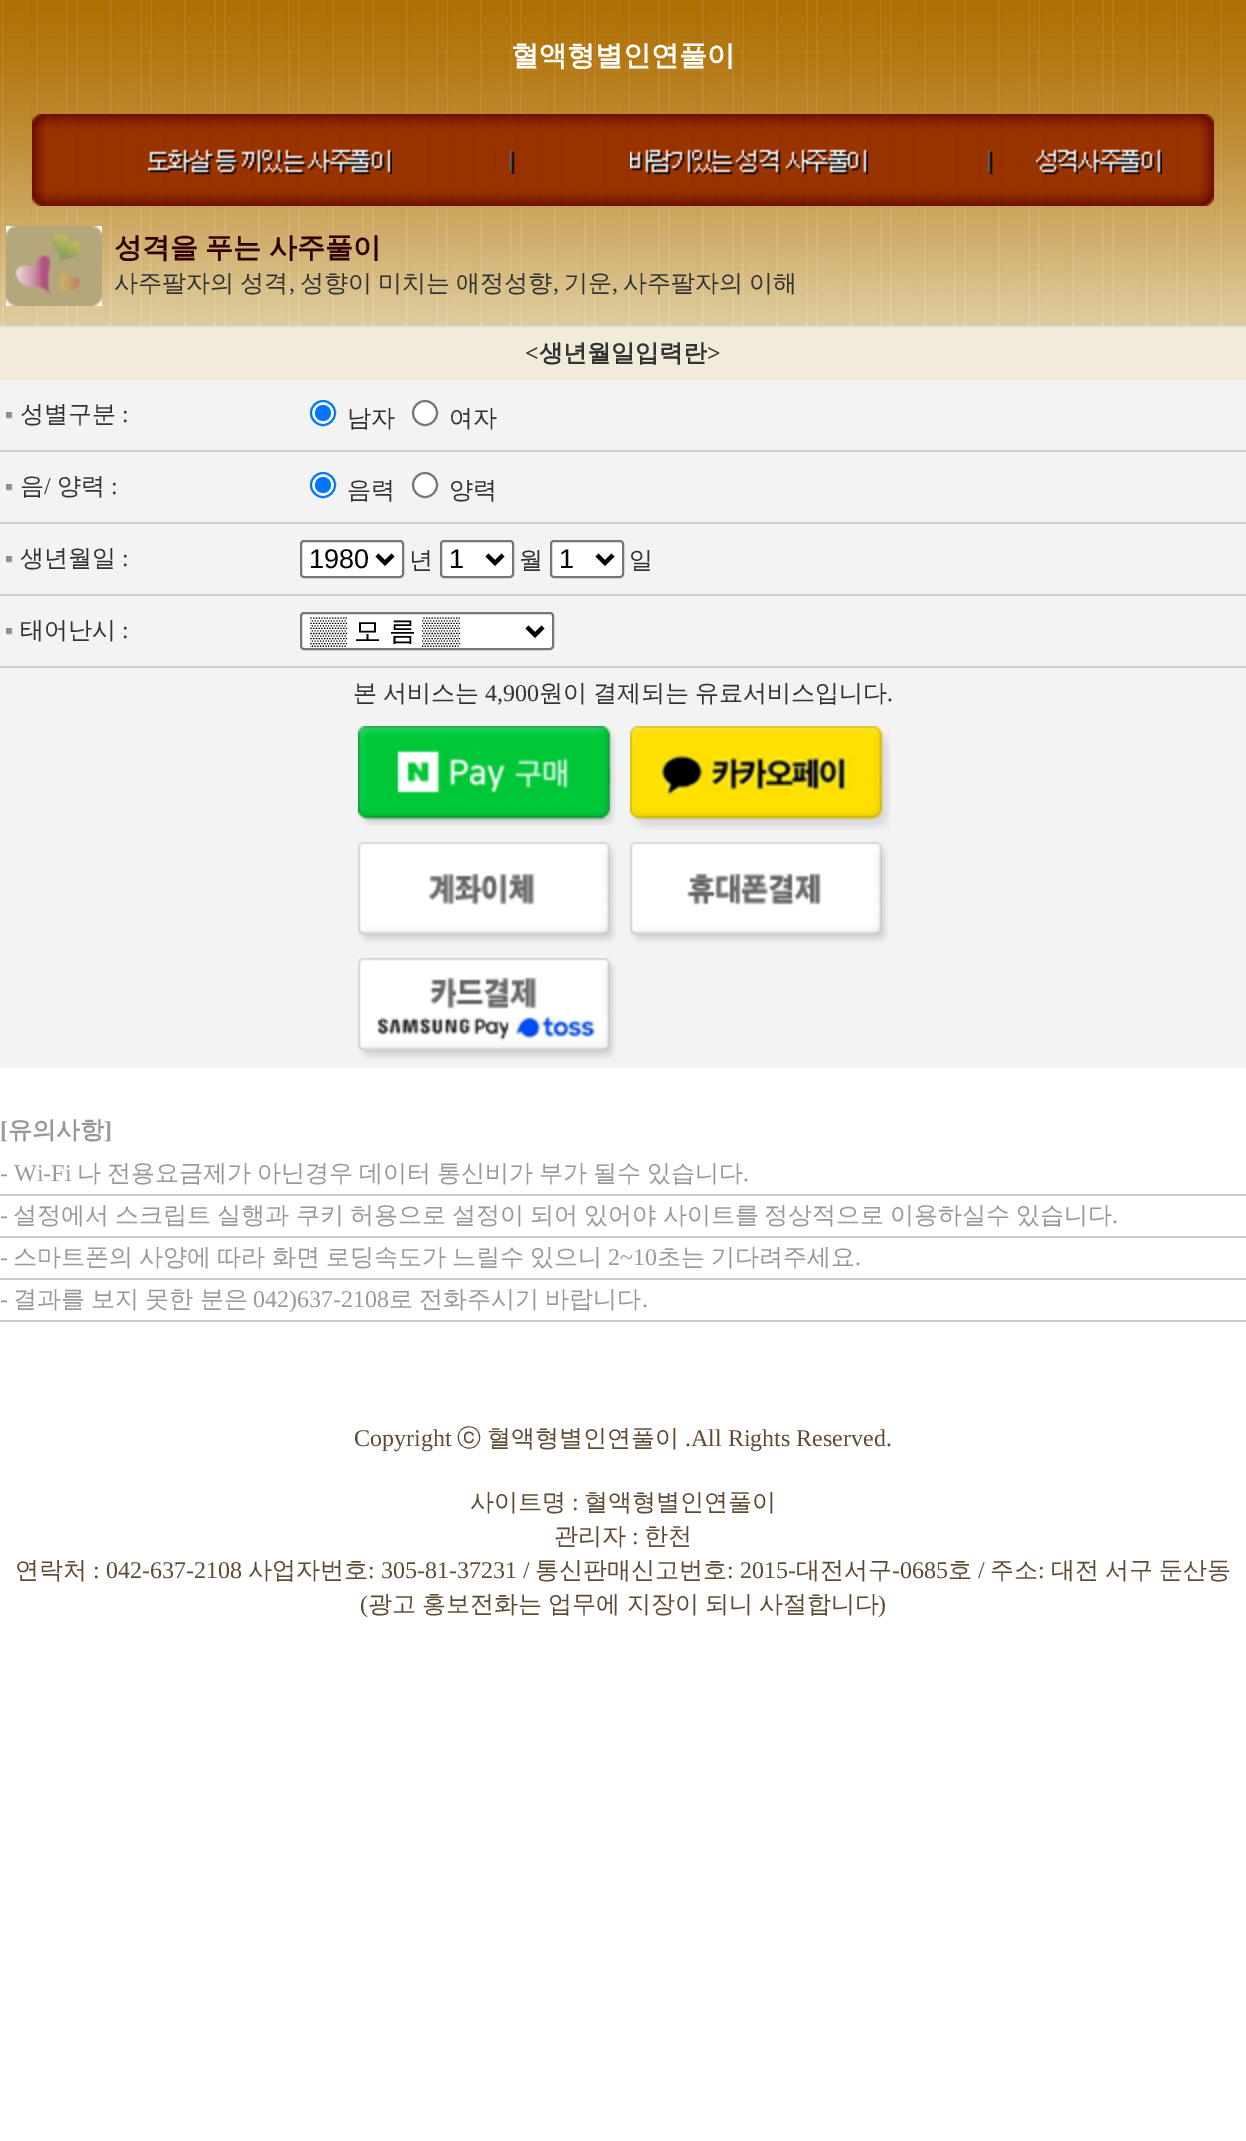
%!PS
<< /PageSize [1246 2141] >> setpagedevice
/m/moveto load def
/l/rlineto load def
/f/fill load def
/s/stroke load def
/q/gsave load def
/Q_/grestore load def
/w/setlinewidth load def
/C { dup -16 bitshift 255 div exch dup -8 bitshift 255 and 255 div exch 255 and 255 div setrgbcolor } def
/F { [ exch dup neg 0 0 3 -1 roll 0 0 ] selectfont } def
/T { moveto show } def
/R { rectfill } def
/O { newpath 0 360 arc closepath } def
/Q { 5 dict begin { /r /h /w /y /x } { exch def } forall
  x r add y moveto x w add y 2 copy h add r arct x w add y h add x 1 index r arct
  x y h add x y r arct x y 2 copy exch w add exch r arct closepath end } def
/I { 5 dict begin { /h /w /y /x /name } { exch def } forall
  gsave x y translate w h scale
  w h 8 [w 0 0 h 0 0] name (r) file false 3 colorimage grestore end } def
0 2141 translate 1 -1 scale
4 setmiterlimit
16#FFFFFF C
0 0 1246 2141 R
(1.rgb) 0 0 1246 326 I
/WenQuanYiZenHei-Bold 28 F
(혈액형별인연풀이) 511 65 T
(2.rgb) 46 114 1154 92 I
(3.rgb) 32 114 14 92 I
(4.rgb) 148 149 244 26 I
(5.rgb) 509 149 6 26 I
(6.rgb) 630 149 238 26 I
(5.rgb) 987 149 6 26 I
(7.rgb) 1036 149 126 26 I
(8.rgb) 1200 114 14 92 I
(9.rgb) 6 226 96 80 I
16#330000 C
114 257 m -1 0 32 (성격을 푸는 사주풀이) widthshow
/WenQuanYiZenHei-Medium 24 F
16#333333 C
114 291 m -1 0 32 (사주팔자의 성격) widthshow
/LiberationSerif-Regular 24 F
(,) 289 291 T
/WenQuanYiZenHei-Medium 24 F
300 291 m -1 0 32 (성향이 미치는 애정성향) widthshow
/LiberationSerif-Regular 24 F
(,) 553 291 T
/WenQuanYiZenHei-Medium 24 F
(기운) 564 291 T
/LiberationSerif-Regular 24 F
(,) 612 291 T
/WenQuanYiZenHei-Medium 24 F
623 291 m -1 0 32 (사주팔자의 이해) widthshow
16#E2E2E2 C
0 326 1246 2 R
16#F3F3F3 C
0 380 1246 688 R
16#F1ECDA C
0 328 1246 52 R
/LiberationSerif-Bold 24 F
16#333333 C
(<) 525 361 T
/WenQuanYiZenHei-Bold 24 F
(생년월일입력란) 539 361 T
/LiberationSerif-Bold 24 F
(>) 707 361 T
(10.rgb) 6 412 7 7 I
/WenQuanYiZenHei-Medium 24 F
(성별구분) 20 422 T
/LiberationSerif-Regular 24 F
(:) 122 422 T
16#FFFFFF C
323 413 12 O q f Q_
16#0075FF C
2 w
s
323 413 8 O f
/WenQuanYiZenHei-Medium 24 F
16#333333 C
(남자) 347 426 T
16#FFFFFF C
425 413 12 O q f Q_
16#767676 C
s
16#333333 C
(여자) 449 426 T
16#CCCCCC C
0 450 1246 2 R
(10.rgb) 6 484 7 7 I
16#333333 C
(음) 20 494 T
/LiberationSerif-Regular 24 F
(/) 44 494 T
/WenQuanYiZenHei-Medium 24 F
(양력) 57 494 T
/LiberationSerif-Regular 24 F
(:) 111 494 T
16#FFFFFF C
323 485 12 O q f Q_
16#0075FF C
s
323 485 8 O f
/WenQuanYiZenHei-Medium 24 F
16#333333 C
(음력) 347 498 T
16#FFFFFF C
425 485 12 O q f Q_
16#767676 C
s
16#333333 C
(양력) 449 498 T
16#CCCCCC C
0 522 1246 2 R
(10.rgb) 6 556 7 7 I
16#333333 C
(생년월일) 20 566 T
/LiberationSerif-Regular 24 F
(:) 122 566 T
16#FFFFFF C
301 541 102 36 3 Q q f Q_
16#767676 C
s
16#000000 C
4 w
377 555 m 8 8 l 8 -8 l s
/LiberationSans-Regular 27 F
(1980) 309 568 T
/WenQuanYiZenHei-Medium 24 F
16#333333 C
(년) 409 568 T
16#FFFFFF C
441 541 72 36 3 Q q f Q_
16#767676 C
2 w
s
16#000000 C
4 w
487 555 m 8 8 l 8 -8 l s
/LiberationSans-Regular 27 F
(1) 449 568 T
/WenQuanYiZenHei-Medium 24 F
16#333333 C
(월) 519 568 T
16#FFFFFF C
551 541 72 36 3 Q q f Q_
16#767676 C
2 w
s
16#000000 C
4 w
597 555 m 8 8 l 8 -8 l s
/LiberationSans-Regular 27 F
(1) 559 568 T
/WenQuanYiZenHei-Medium 24 F
16#333333 C
(일) 629 568 T
16#CCCCCC C
0 594 1246 2 R
(10.rgb) 6 628 7 7 I
16#333333 C
(태어난시) 20 638 T
/LiberationSerif-Regular 24 F
(:) 122 638 T
16#FFFFFF C
301 613 252 36 3 Q q f Q_
16#767676 C
2 w
s
16#000000 C
4 w
527 627 m 8 8 l 8 -8 l s
q
310 614 210 34 rectclip
/LiberationSans-Regular 27 F
(▒▒) 309 640 T
Q_
/WenQuanYiZenHei-Medium 27 F
(모 름) 354 640 T
/LiberationSans-Regular 27 F
(▒▒) 422 640 T
16#CCCCCC C
0 666 1246 2 R
/WenQuanYiZenHei-Medium 24 F
16#333333 C
353 701 m -1 0 32 (본 서비스는) widthshow
/LiberationSerif-Regular 24 F
(4,900) 485 701 T
/WenQuanYiZenHei-Medium 24 F
539 701 m -1 0 32 (원이 결제되는 유료서비스입니다) widthshow
/LiberationSerif-Regular 24 F
(.) 887 701 T
(11.rgb) 358 726 258 100 I
(12.rgb) 630 726 260 104 I
(13.rgb) 358 842 258 101 I
(14.rgb) 630 842 258 101 I
(15.rgb) 358 958 258 101 I
/LiberationSerif-Bold 24 F
16#999999 C
([) 0 1138 T
/WenQuanYiZenHei-Bold 24 F
(유의사항) 8 1138 T
/LiberationSerif-Bold 24 F
(]) 104 1138 T
/LiberationSerif-Regular 24 F
(- Wi-Fi) 0 1181 T
/WenQuanYiZenHei-Medium 24 F
(나) 77 1181 T
(전용요금제가) 107 1181 T
(아닌경우) 257 1181 T
(데이터) 359 1181 T
(통신비가) 437 1181 T
(부가) 539 1181 T
(될수) 593 1181 T
(있습니다) 647 1181 T
/LiberationSerif-Regular 24 F
(.) 743 1181 T
16#CCCCCC C
0 1194 1246 2 R
16#999999 C
(-) 0 1223 T
/WenQuanYiZenHei-Medium 24 F
13 1223 m -1 0 32 (설정에서 스크립트 실행과 쿠키 허용으로 설정이 되어 있어야 사이트를) widthshow
764 1223 m -1 0 32 (정상적으로 이용하실수 있습니다) widthshow
/LiberationSerif-Regular 24 F
(.) 1112 1223 T
16#CCCCCC C
0 1236 1246 2 R
16#999999 C
(-) 0 1265 T
/WenQuanYiZenHei-Medium 24 F
13 1265 m -1 0 32 (스마트폰의 사양에 따라 화면 로딩속도가 느릴수 있으니) widthshow
/LiberationSerif-Regular 24 F
(2~10) 608 1265 T
/WenQuanYiZenHei-Medium 24 F
(초는) 657 1265 T
(기다려주세요) 711 1265 T
/LiberationSerif-Regular 24 F
(.) 855 1265 T
16#CCCCCC C
0 1278 1246 2 R
16#999999 C
(-) 0 1307 T
/WenQuanYiZenHei-Medium 24 F
13 1307 m -1 0 32 (결과를 보지 못한 분은) widthshow
/LiberationSerif-Regular 24 F
(042\)637-2108) 253 1307 T
/WenQuanYiZenHei-Medium 24 F
389 1307 m -1 0 32 (로 전화주시기 바랍니다) widthshow
/LiberationSerif-Regular 24 F
(.) 642 1307 T
16#CCCCCC C
0 1320 1246 2 R
16#5F4B34 C
(Copyright) 354 1446 T
/WenQuanYiZenHei-Medium 24 F
(ⓒ) 457 1446 T
(혈액형별인연풀이) 487 1446 T
/LiberationSerif-Regular 24 F
(.All Rights Reserved.) 685 1446 T
/WenQuanYiZenHei-Medium 24 F
(사이트명) 470 1510 T
/LiberationSerif-Regular 24 F
(:) 572 1510 T
/WenQuanYiZenHei-Medium 24 F
(혈액형별인연풀이) 584 1510 T
(관리자) 554 1544 T
/LiberationSerif-Regular 24 F
(:) 632 1544 T
/WenQuanYiZenHei-Medium 24 F
(한천) 644 1544 T
(연락처) 15 1578 T
/LiberationSerif-Regular 24 F
(: 042-637-2108) 93 1578 T
/WenQuanYiZenHei-Medium 24 F
(사업자번호) 248 1578 T
/LiberationSerif-Regular 24 F
(: 305-81-37231 /) 368 1578 T
/WenQuanYiZenHei-Medium 24 F
(통신판매신고번호) 535 1578 T
/LiberationSerif-Regular 24 F
(: 2015-) 727 1578 T
/WenQuanYiZenHei-Medium 24 F
(대전서구) 796 1578 T
/LiberationSerif-Regular 24 F
(-0685) 892 1578 T
/WenQuanYiZenHei-Medium 24 F
(호) 948 1578 T
/LiberationSerif-Regular 24 F
(/) 978 1578 T
/WenQuanYiZenHei-Medium 24 F
(주소) 990 1578 T
/LiberationSerif-Regular 24 F
(:) 1038 1578 T
/WenQuanYiZenHei-Medium 24 F
(대전) 1051 1578 T
(서구) 1105 1578 T
(둔산동) 1159 1578 T
/LiberationSerif-Regular 24 F
(\() 360 1612 T
/WenQuanYiZenHei-Medium 24 F
368 1612 m -1 0 32 (광고 홍보전화는 업무에 지장이 되니 사절합니다) widthshow
/LiberationSerif-Regular 24 F
(\)) 878 1612 T
showpage
